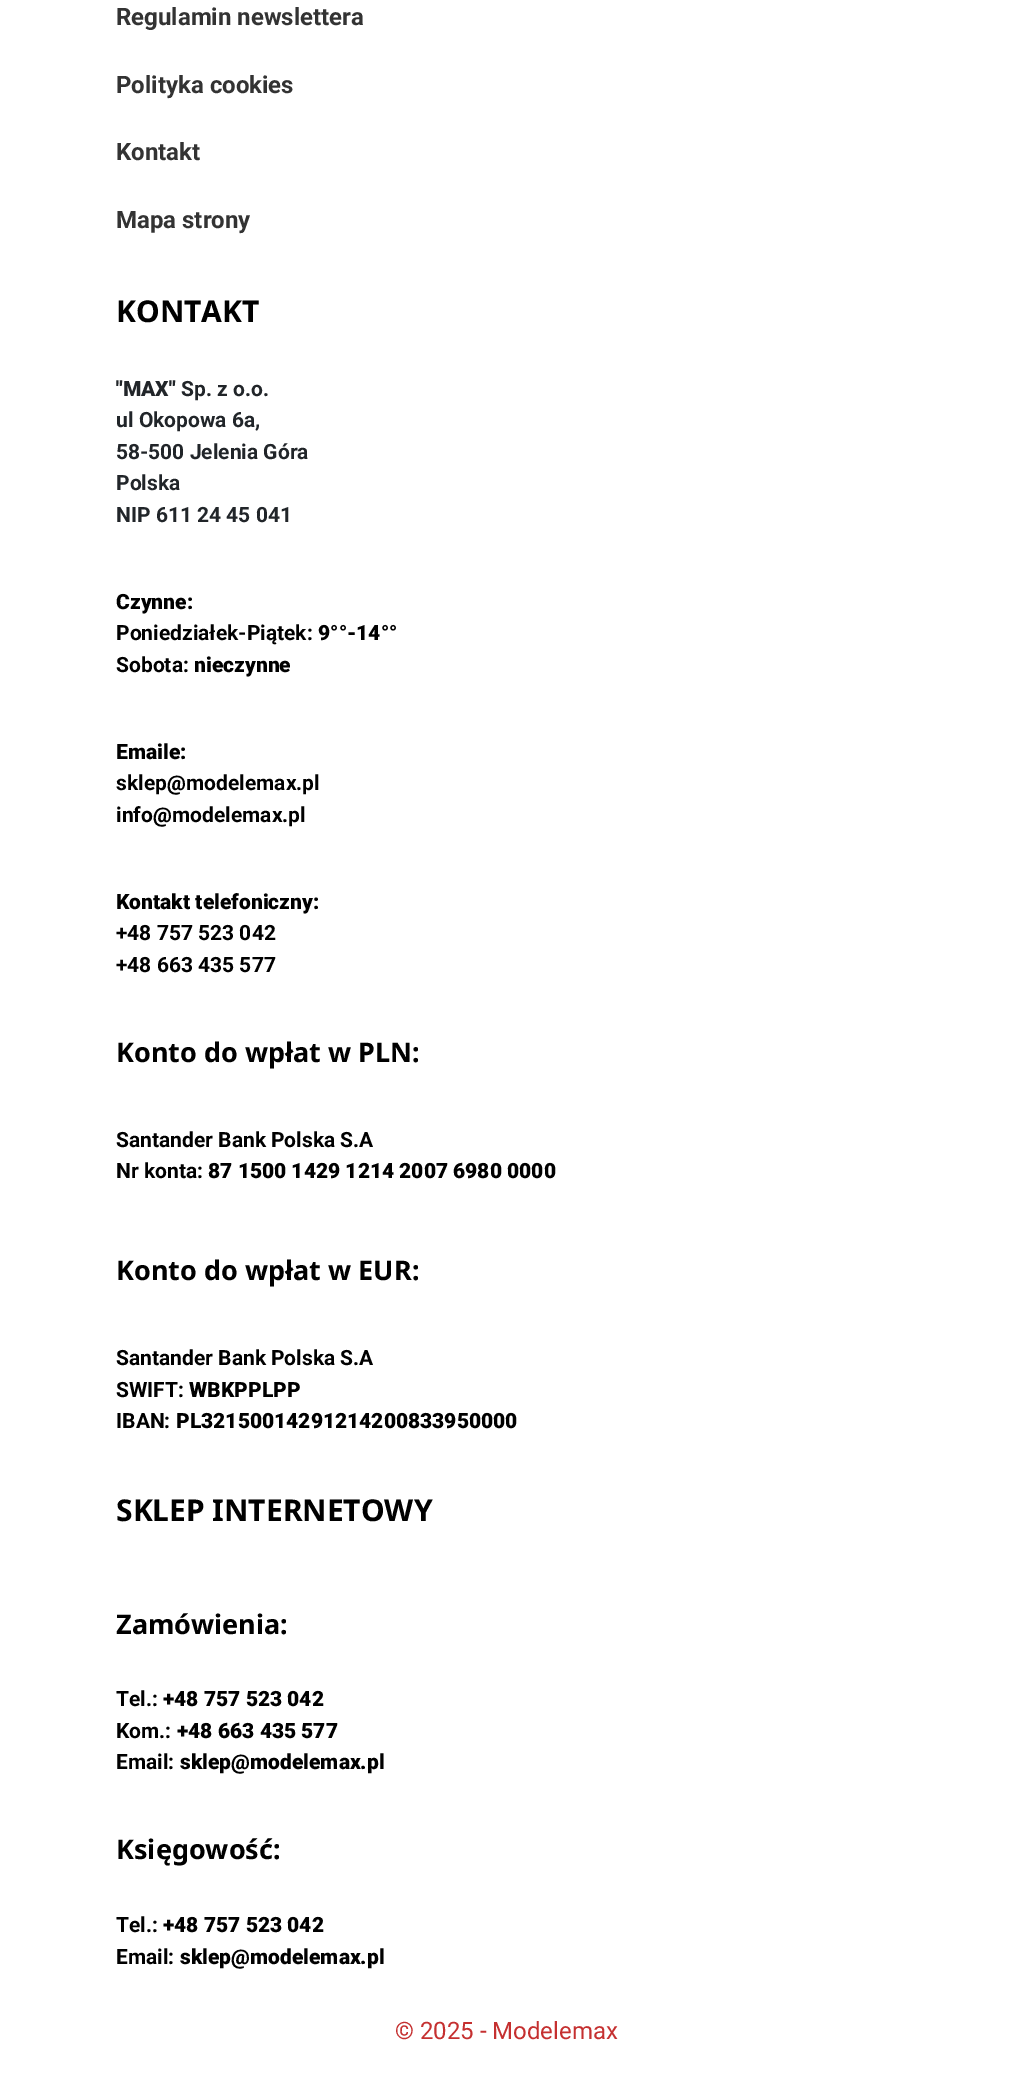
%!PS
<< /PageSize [1012 2087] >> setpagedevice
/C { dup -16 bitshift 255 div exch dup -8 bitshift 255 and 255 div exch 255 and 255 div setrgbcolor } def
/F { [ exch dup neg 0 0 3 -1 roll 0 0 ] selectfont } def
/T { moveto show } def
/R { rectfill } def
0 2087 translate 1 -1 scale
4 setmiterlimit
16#FFFFFF C
0 0 1012 2087 R
/Roboto-Bold 24 F
16#333333 C
(Regulamin newslettera) 116 25 T
(Polityka cookies) 116 93 T
(Kontakt) 116 160 T
(Mapa strony) 116 228 T
/NotoSans-Bold 30 F
16#000000 C
(KONTAKT) 116 322 T
/Roboto-Black 21 F
16#212529 C
("MAX") 116 396 T
/Roboto-Bold 21 F
(Sp. z o.o.) 181 396 T
(ul Okopowa 6a,) 116 427 T
(58-500 Jelenia Góra) 116 459 T
(Polska) 116 490 T
(NIP 611 24 45 041) 116 522 T
/Roboto-Black 21 F
16#000000 C
(Czynne:) 116 609 T
/Roboto-Bold 21 F
(Poniedziałek-Piątek:) 116 640 T
/Roboto-Black 21 F
(9°°-14°°) 318 640 T
/Roboto-Bold 21 F
(Sobota:) 116 672 T
/Roboto-Black 21 F
(nieczynne) 194 672 T
(Emaile:) 116 759 T
/Roboto-Bold 21 F
(sklep) 116 790 T
/Roboto-Black 21 F
(@) 167 790 T
/Roboto-Bold 21 F
(modelemax.pl) 186 790 T
(info) 116 822 T
/Roboto-Black 21 F
(@) 153 822 T
/Roboto-Bold 21 F
(modelemax.pl) 172 822 T
/Roboto-Black 21 F
(Kontakt telefoniczny:) 116 909 T
/Roboto-Bold 21 F
(+48 757 523 042) 116 940 T
(+48 663 435 577) 116 972 T
/NotoSans-Bold 27 F
(Konto do wpłat w PLN:) 116 1062 T
/Roboto-Bold 21 F
(Santander Bank Polska S.A) 116 1147 T
(Nr konta:) 116 1178 T
/Roboto-Black 21 F
(87 1500 1429 1214 2007 6980 0000) 208 1178 T
/NotoSans-Bold 27 F
(Konto do wpłat w EUR:) 116 1280 T
/Roboto-Bold 21 F
(Santander Bank Polska S.A) 116 1365 T
(SWIFT:) 116 1397 T
/Roboto-Black 21 F
(WBKPPLPP) 189 1397 T
/Roboto-Bold 21 F
(IBAN:) 116 1428 T
/Roboto-Black 21 F
(PL32150014291214200833950000) 176 1428 T
/NotoSans-Bold 30 F
(SKLEP INTERNETOWY) 116 1521 T
/NotoSans-Bold 27 F
(Zamówienia:) 116 1634 T
/Roboto-Bold 21 F
(Tel.:) 116 1706 T
/Roboto-Black 21 F
(+48 757 523 042) 163 1706 T
/Roboto-Bold 21 F
(Kom.:) 116 1738 T
/Roboto-Black 21 F
(+48 663 435 577) 177 1738 T
/Roboto-Bold 21 F
(Email:) 116 1769 T
/Roboto-Black 21 F
(sklep@modelemax.pl) 180 1769 T
/NotoSans-Bold 27 F
(Księgowość:) 116 1859 T
/Roboto-Bold 21 F
(Tel.:) 116 1932 T
/Roboto-Black 21 F
(+48 757 523 042) 163 1932 T
/Roboto-Bold 21 F
(Email:) 116 1964 T
/Roboto-Black 21 F
(sklep@modelemax.pl) 180 1964 T
/Roboto-Regular 24 F
16#C53030 C
(© 2025 - Modelemax) 395 2039 T
showpage
